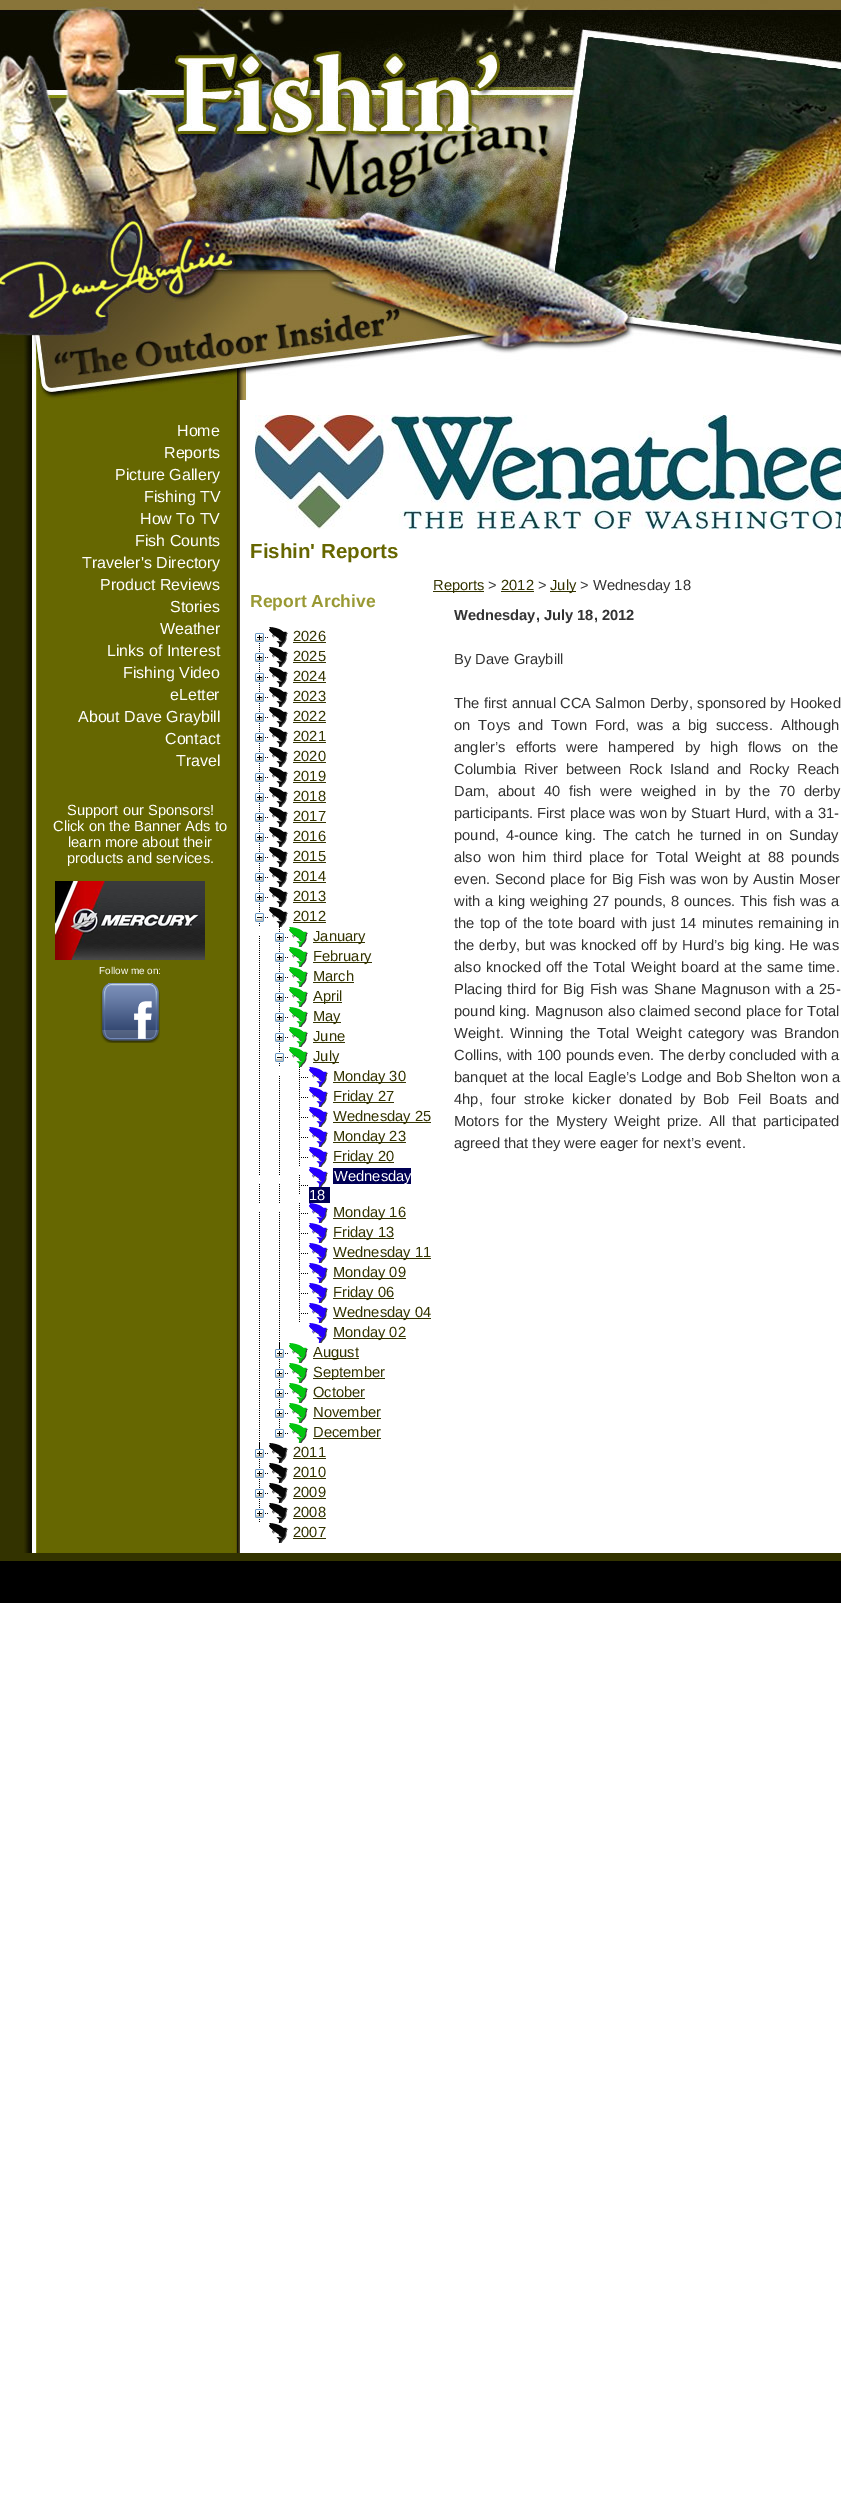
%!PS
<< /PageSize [841 2511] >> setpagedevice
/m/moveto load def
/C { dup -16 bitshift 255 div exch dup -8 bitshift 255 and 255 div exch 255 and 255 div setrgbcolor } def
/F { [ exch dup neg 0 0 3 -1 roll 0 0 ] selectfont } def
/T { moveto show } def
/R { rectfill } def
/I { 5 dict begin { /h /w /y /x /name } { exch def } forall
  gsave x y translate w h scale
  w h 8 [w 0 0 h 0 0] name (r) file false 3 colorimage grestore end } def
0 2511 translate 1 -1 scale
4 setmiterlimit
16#FFFFFF C
0 0 841 2511 R
(1.rgb) 0 0 841 400 I
(2.rgb) 0 400 240 1153 I
/LiberationSans-Regular 16 F
(Home) 177 436 T
(Reports) 164 458 T
(Picture Gallery) 115 480 T
(Fishing TV) 144 502 T
(How To TV) 140 524 T
(Fish Counts) 135 546 T
(Traveler's Directory) 82 568 T
(Product Reviews) 100 590 T
(Stories) 170 612 T
(Weather) 160 634 T
(Links of Interest) 107 656 T
(Fishing Video) 123 678 T
(eLetter) 170 700 T
(About Dave Graybill) 78 722 T
(Contact) 165 744 T
(Travel) 176 766 T
/LiberationSans-Regular 14.7 F
(Support our Sponsors!) 67 815 T
(Click on the Banner Ads to) 53 831 T
(learn more about their) 68 847 T
(products and services.) 67 863 T
(3.rgb) 55 881 150 79 I
/LiberationSans-Regular 10 F
(Follow me on:) 99 974 T
(4.rgb) 100 983 60 60 I
(5.rgb) 255 415 586 114 I
/LiberationSans-Bold 20.5 F
16#666600 C
(Fishin' Reports) 250 558 T
/LiberationSans-Bold 17.5 F
16#999933 C
(Report Archive) 250 607 T
(6.rgb) 255 633 13 13 I
(7.rgb) 269 627 19 20 I
/LiberationSans-Regular 14.7 F
16#333300 C
(2026) 293 641 T
293 642 33 1 R
(8.rgb) 255 647 13 19 I
(7.rgb) 269 647 19 20 I
(2025) 293 661 T
293 662 33 1 R
(8.rgb) 255 667 13 19 I
(7.rgb) 269 667 19 20 I
(2024) 293 681 T
293 682 33 1 R
(8.rgb) 255 687 13 19 I
(7.rgb) 269 687 19 20 I
(2023) 293 701 T
293 702 33 1 R
(8.rgb) 255 707 13 19 I
(7.rgb) 269 707 19 20 I
(2022) 293 721 T
293 722 33 1 R
(8.rgb) 255 727 13 19 I
(7.rgb) 269 727 19 20 I
(2021) 293 741 T
293 742 33 1 R
(8.rgb) 255 747 13 19 I
(7.rgb) 269 747 19 20 I
(2020) 293 761 T
293 762 33 1 R
(8.rgb) 255 767 13 19 I
(7.rgb) 269 767 19 20 I
(2019) 293 781 T
293 782 33 1 R
(8.rgb) 255 787 13 19 I
(7.rgb) 269 787 19 20 I
(2018) 293 801 T
293 802 33 1 R
(8.rgb) 255 807 13 19 I
(7.rgb) 269 807 19 20 I
(2017) 293 821 T
293 822 33 1 R
(8.rgb) 255 827 13 19 I
(7.rgb) 269 827 19 20 I
(2016) 293 841 T
293 842 33 1 R
(8.rgb) 255 847 13 19 I
(7.rgb) 269 847 19 20 I
(2015) 293 861 T
293 862 33 1 R
(8.rgb) 255 867 13 19 I
(7.rgb) 269 867 19 20 I
(2014) 293 881 T
293 882 33 1 R
(8.rgb) 255 887 13 19 I
(7.rgb) 269 887 19 20 I
(2013) 293 901 T
293 902 33 1 R
(9.rgb) 255 907 13 19 I
(7.rgb) 269 907 19 20 I
(2012) 293 921 T
293 922 33 1 R
(10.rgb) 259 936 1 19 I
(8.rgb) 275 927 13 19 I
(11.rgb) 289 927 19 20 I
313 942 52 1 R
(January) 313 941 T
(10.rgb) 259 956 1 19 I
(8.rgb) 275 947 13 19 I
(11.rgb) 289 947 19 20 I
313 962 59 1 R
(February) 313 961 T
(10.rgb) 259 976 1 19 I
(8.rgb) 275 967 13 19 I
(11.rgb) 289 967 19 20 I
(March) 313 981 T
313 982 41 1 R
(10.rgb) 259 996 1 19 I
(8.rgb) 275 987 13 19 I
(11.rgb) 289 987 19 20 I
313 1002 29 1 R
(April) 313 1001 T
(10.rgb) 259 1016 1 19 I
(8.rgb) 275 1007 13 19 I
(11.rgb) 289 1007 19 20 I
313 1022 28 1 R
(May) 313 1021 T
(10.rgb) 259 1036 1 19 I
(8.rgb) 275 1027 13 19 I
(11.rgb) 289 1027 19 20 I
(June) 313 1041 T
313 1042 32 1 R
(10.rgb) 259 1056 1 19 I
(9.rgb) 275 1047 13 19 I
(11.rgb) 289 1047 19 20 I
313 1062 26 1 R
(July) 313 1061 T
(10.rgb) 259 1076 1 19 I
(10.rgb) 279 1076 1 19 I
(12.rgb) 299 1067 9 19 I
(13.rgb) 309 1067 19 20 I
333 1082 73 1 R
(Monday 30) 333 1081 T
(10.rgb) 259 1096 1 19 I
(10.rgb) 279 1096 1 19 I
(12.rgb) 299 1087 9 19 I
(13.rgb) 309 1087 19 20 I
333 1102 61 1 R
(Friday 27) 333 1101 T
(10.rgb) 259 1116 1 19 I
(10.rgb) 279 1116 1 19 I
(12.rgb) 299 1107 9 19 I
(13.rgb) 309 1107 19 20 I
333 1122 98 1 R
(Wednesday 25) 333 1121 T
(10.rgb) 259 1136 1 19 I
(10.rgb) 279 1136 1 19 I
(12.rgb) 299 1127 9 19 I
(13.rgb) 309 1127 19 20 I
333 1142 73 1 R
(Monday 23) 333 1141 T
(10.rgb) 259 1156 1 19 I
(10.rgb) 279 1156 1 19 I
(12.rgb) 299 1147 9 19 I
(13.rgb) 309 1147 19 20 I
333 1162 61 1 R
(Friday 20) 333 1161 T
(10.rgb) 259 1184 1 19 I
(10.rgb) 279 1184 1 19 I
(12.rgb) 299 1175 9 19 I
(13.rgb) 309 1167 19 20 I
16#000055 C
333 1168 78 16 R
16#FFFFFF C
(Wednesday) 334 1181 T
16#000055 C
309 1187 21 16 R
16#FFFFFF C
(18) 309 1200 T
(10.rgb) 259 1212 1 19 I
(10.rgb) 279 1212 1 19 I
(12.rgb) 299 1203 9 19 I
(13.rgb) 309 1203 19 20 I
16#333300 C
333 1218 73 1 R
(Monday 16) 333 1217 T
(10.rgb) 259 1232 1 19 I
(10.rgb) 279 1232 1 19 I
(12.rgb) 299 1223 9 19 I
(13.rgb) 309 1223 19 20 I
333 1238 61 1 R
(Friday 13) 333 1237 T
(10.rgb) 259 1252 1 19 I
(10.rgb) 279 1252 1 19 I
(12.rgb) 299 1243 9 19 I
(13.rgb) 309 1243 19 20 I
333 1258 98 1 R
(Wednesday 11) 333 1257 T
(10.rgb) 259 1272 1 19 I
(10.rgb) 279 1272 1 19 I
(12.rgb) 299 1263 9 19 I
(13.rgb) 309 1263 19 20 I
333 1278 73 1 R
(Monday 09) 333 1277 T
(10.rgb) 259 1292 1 19 I
(10.rgb) 279 1292 1 19 I
(12.rgb) 299 1283 9 19 I
(13.rgb) 309 1283 19 20 I
333 1298 61 1 R
(Friday 06) 333 1297 T
(10.rgb) 259 1312 1 19 I
(10.rgb) 279 1312 1 19 I
(12.rgb) 299 1303 9 19 I
(13.rgb) 309 1303 19 20 I
333 1318 98 1 R
(Wednesday 04) 333 1317 T
(10.rgb) 259 1332 1 19 I
(14.rgb) 279 1332 1 17 I
(13.rgb) 309 1323 19 20 I
333 1338 73 1 R
(Monday 02) 333 1337 T
(10.rgb) 259 1352 1 19 I
(15.rgb) 275 1343 13 19 I
(11.rgb) 289 1343 19 20 I
313 1358 46 1 R
(August) 313 1357 T
(10.rgb) 259 1372 1 19 I
(8.rgb) 275 1363 13 19 I
(11.rgb) 289 1363 19 20 I
313 1378 72 1 R
(September) 313 1377 T
(10.rgb) 259 1392 1 19 I
(8.rgb) 275 1383 13 19 I
(11.rgb) 289 1383 19 20 I
(October) 313 1397 T
313 1398 52 1 R
(10.rgb) 259 1412 1 19 I
(8.rgb) 275 1403 13 19 I
(11.rgb) 289 1403 19 20 I
(November) 313 1417 T
313 1418 68 1 R
(14.rgb) 259 1432 1 17 I
(16.rgb) 275 1423 13 15 I
(11.rgb) 289 1423 19 20 I
(December) 313 1437 T
313 1438 68 1 R
(15.rgb) 255 1443 13 19 I
(7.rgb) 269 1443 19 20 I
(2011) 293 1457 T
293 1458 33 1 R
(8.rgb) 255 1463 13 19 I
(7.rgb) 269 1463 19 20 I
(2010) 293 1477 T
293 1478 33 1 R
(8.rgb) 255 1483 13 19 I
(7.rgb) 269 1483 19 20 I
(2009) 293 1497 T
293 1498 33 1 R
(8.rgb) 255 1503 13 19 I
(7.rgb) 269 1503 19 20 I
(2008) 293 1517 T
293 1518 33 1 R
(7.rgb) 269 1523 19 20 I
(2007) 293 1537 T
293 1538 33 1 R
433 591 51 1 R
(Reports) 433 590 T
16#333333 C
(>) 488 590 T
16#333300 C
(2012) 501 590 T
501 591 33 1 R
16#333333 C
(>) 538 590 T
16#333300 C
550 591 26 1 R
(July) 550 590 T
16#333333 C
(> Wednesday 18) 580 590 T
/LiberationSans-Bold 14.7 F
(Wednesday, July 18, 2012) 454 620 T
/LiberationSans-Regular 14.7 F
(By Dave Graybill) 454 664 T
454 708 m .25 0 32 (The first annual CCA Salmon Derby, sponsored by Hooked) widthshow
454 730 m 4 0 32 (on Toys and Town Ford, was a big success.) widthshow
(Although) 781 730 T
454 752 m 6 0 32 (angler’s efforts were hampered by high flows on the) widthshow
454 774 m 3.5 0 32 (Columbia River between Rock Island and Rocky Reach) widthshow
454 796 m 4.75 0 32 (Dam, about 40 fish were weighed in by the 70 derby) widthshow
(participants.) 454 818 T
537 818 m .25 0 32 (First place was won by Stuart Hurd, with a 31-) widthshow
454 840 m 2.5 0 32 (pound, 4-ounce king.) widthshow
603 840 m 2.5 0 32 (The catch he turned in on Sunday) widthshow
454 862 m 3.1 0 32 (also won him third place for Total Weight at 88 pounds) widthshow
(even.) 454 884 T
495 884 m .75 0 32 (Second place for Big Fish was won by Austin Moser) widthshow
454 906 m .75 0 32 (with a king weighing 27 pounds, 8 ounces.) widthshow
740 906 m .75 0 32 (This fish was a) widthshow
454 928 m 1.1 0 32 (the top of the tote board with just 14 minutes remaining in) widthshow
454 950 m .75 0 32 (the derby, but was knocked off by Hurd’s big king.) widthshow
789 950 m 1 0 32 (He was) widthshow
454 972 m 1 0 32 (also knocked off the Total Weight board at the same time.) widthshow
454 994 m 1 0 32 (Placing third for Big Fish was Shane Magnuson with a 25-) widthshow
(pound king.) 454 1016 T
535 1016 m .25 0 32 (Magnuson also claimed second place for Total) widthshow
(Weight.) 454 1038 T
510 1038 m 2.5 0 32 (Winning the Total Weight category was Brandon) widthshow
454 1060 m .25 0 32 (Collins, with 100 pounds even. The derby concluded with a) widthshow
454 1082 m .5 0 32 (banquet at the local Eagle’s Lodge and Bob Shelton won a) widthshow
454 1104 m 4 0 32 (4hp, four stroke kicker donated by Bob Feil Boats and) widthshow
454 1126 m 2.5 0 32 (Motors for the Mystery Weight prize.) widthshow
709 1126 m 2.5 0 32 (All that participated) widthshow
(agreed that they were eager for next’s event.) 454 1148 T
(17.rgb) 0 1553 841 50 I
showpage
